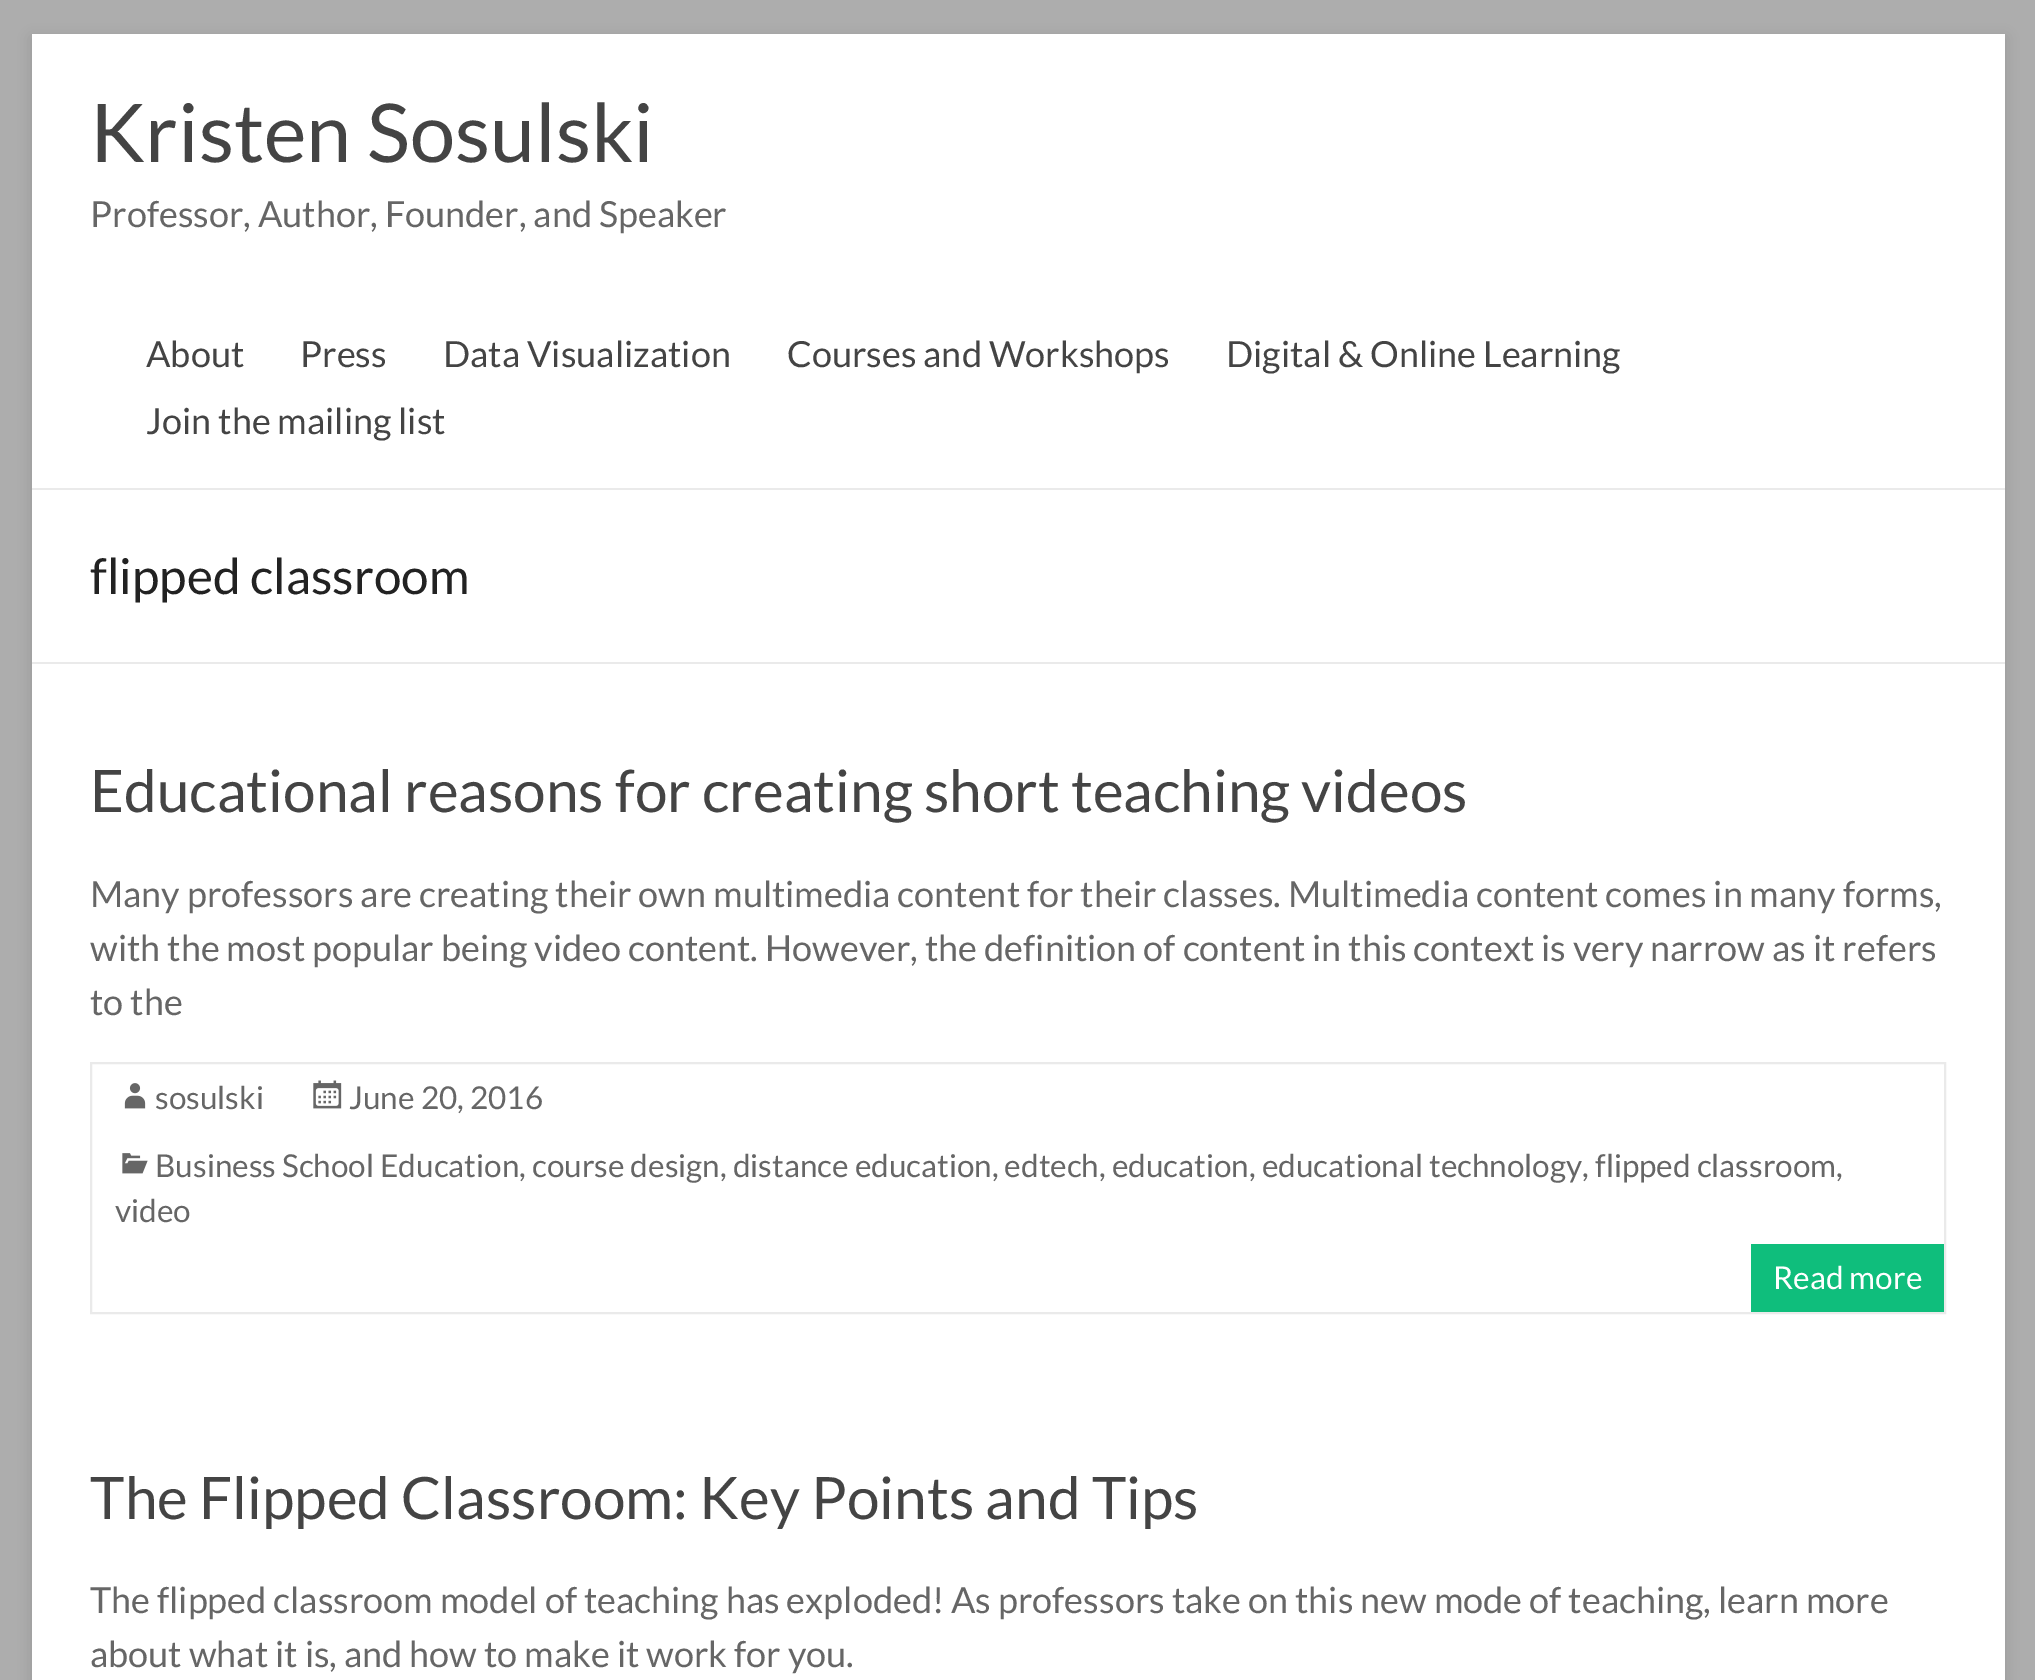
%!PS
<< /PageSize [2035 1680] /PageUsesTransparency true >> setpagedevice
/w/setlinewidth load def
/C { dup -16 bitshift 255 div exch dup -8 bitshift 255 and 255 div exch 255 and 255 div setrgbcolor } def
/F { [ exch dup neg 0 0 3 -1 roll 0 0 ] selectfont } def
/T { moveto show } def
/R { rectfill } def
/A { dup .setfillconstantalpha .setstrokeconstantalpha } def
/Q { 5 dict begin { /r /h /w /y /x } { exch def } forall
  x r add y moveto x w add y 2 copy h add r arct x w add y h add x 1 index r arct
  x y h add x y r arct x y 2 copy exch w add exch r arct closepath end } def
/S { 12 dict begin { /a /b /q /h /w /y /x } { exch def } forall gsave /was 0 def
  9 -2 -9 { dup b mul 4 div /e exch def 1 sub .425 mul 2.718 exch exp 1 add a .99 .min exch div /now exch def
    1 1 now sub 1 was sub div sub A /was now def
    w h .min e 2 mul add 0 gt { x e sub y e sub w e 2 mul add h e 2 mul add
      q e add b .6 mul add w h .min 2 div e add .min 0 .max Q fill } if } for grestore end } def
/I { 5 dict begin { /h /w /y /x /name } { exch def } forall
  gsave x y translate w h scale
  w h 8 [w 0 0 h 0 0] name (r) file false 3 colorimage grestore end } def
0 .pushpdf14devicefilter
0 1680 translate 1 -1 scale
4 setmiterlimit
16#ADADAD C
0 0 2035 1680 R
16#646464 C
32 38 1973 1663 0 7 .3 S
16#FFFFFF C
32 34 1973 1646 R
16#EAEAEA C
32 488 1973 2 R
/Lato-Regular 81 F
16#444444 C
(Kristen Sosulski) 90 162 T
/Lato-Regular 36 F
16#666666 C
(Professor, Author, Founder, and Speaker) 90 227 T
16#444444 C
(About) 146 367 T
(Press) 300 367 T
(Data Visualization) 443 367 T
(Courses and Workshops) 787 367 T
(Digital & Online Learning) 1226 367 T
(Join the mailing list) 146 434 T
16#EAEAEA C
32 662 1973 2 R
/Lato-Regular 49.5 F
16#222222 C
(flipped classroom) 90 594 T
/Lato-Regular 58.5 F
16#444444 C
(Educational reasons for creating short teaching videos) 90 812 T
/Lato-Regular 36 F
16#666666 C
(Many professors are creating their own multimedia content for their classes. Multimedia content comes in many forms,) 90 907 T
(with the most popular being video content. However, the definition of content in this context is very narrow as it refers) 90 961 T
(to the) 90 1015 T
16#EAEAEA C
2 w
91 1063 1854 250 rectstroke
(1.rgb) 124 1083 22 26 I
/Lato-Regular 31.5 F
16#666666 C
(sosulski) 155 1109 T
(2.rgb) 313 1080 29 29 I
(June 20, 2016) 349 1109 T
(3.rgb) 122 1153 26 21 I
(Business School Education, course design, distance education, edtech, education, educational technology, flipped classroom,) 155 1177 T
(video) 115 1222 T
16#0FBE7C C
1751 1244 193 68 R
16#FFFFFF C
(Read more) 1773 1289 T
/Lato-Regular 58.5 F
16#444444 C
(The Flipped Classroom: Key Points and Tips) 90 1519 T
/Lato-Regular 36 F
16#666666 C
(The flipped classroom model of teaching has exploded! As professors take on this new mode of teaching, learn more) 90 1613 T
(about what it is, and how to make it work for you.) 90 1667 T
.poppdf14devicefilter showpage
